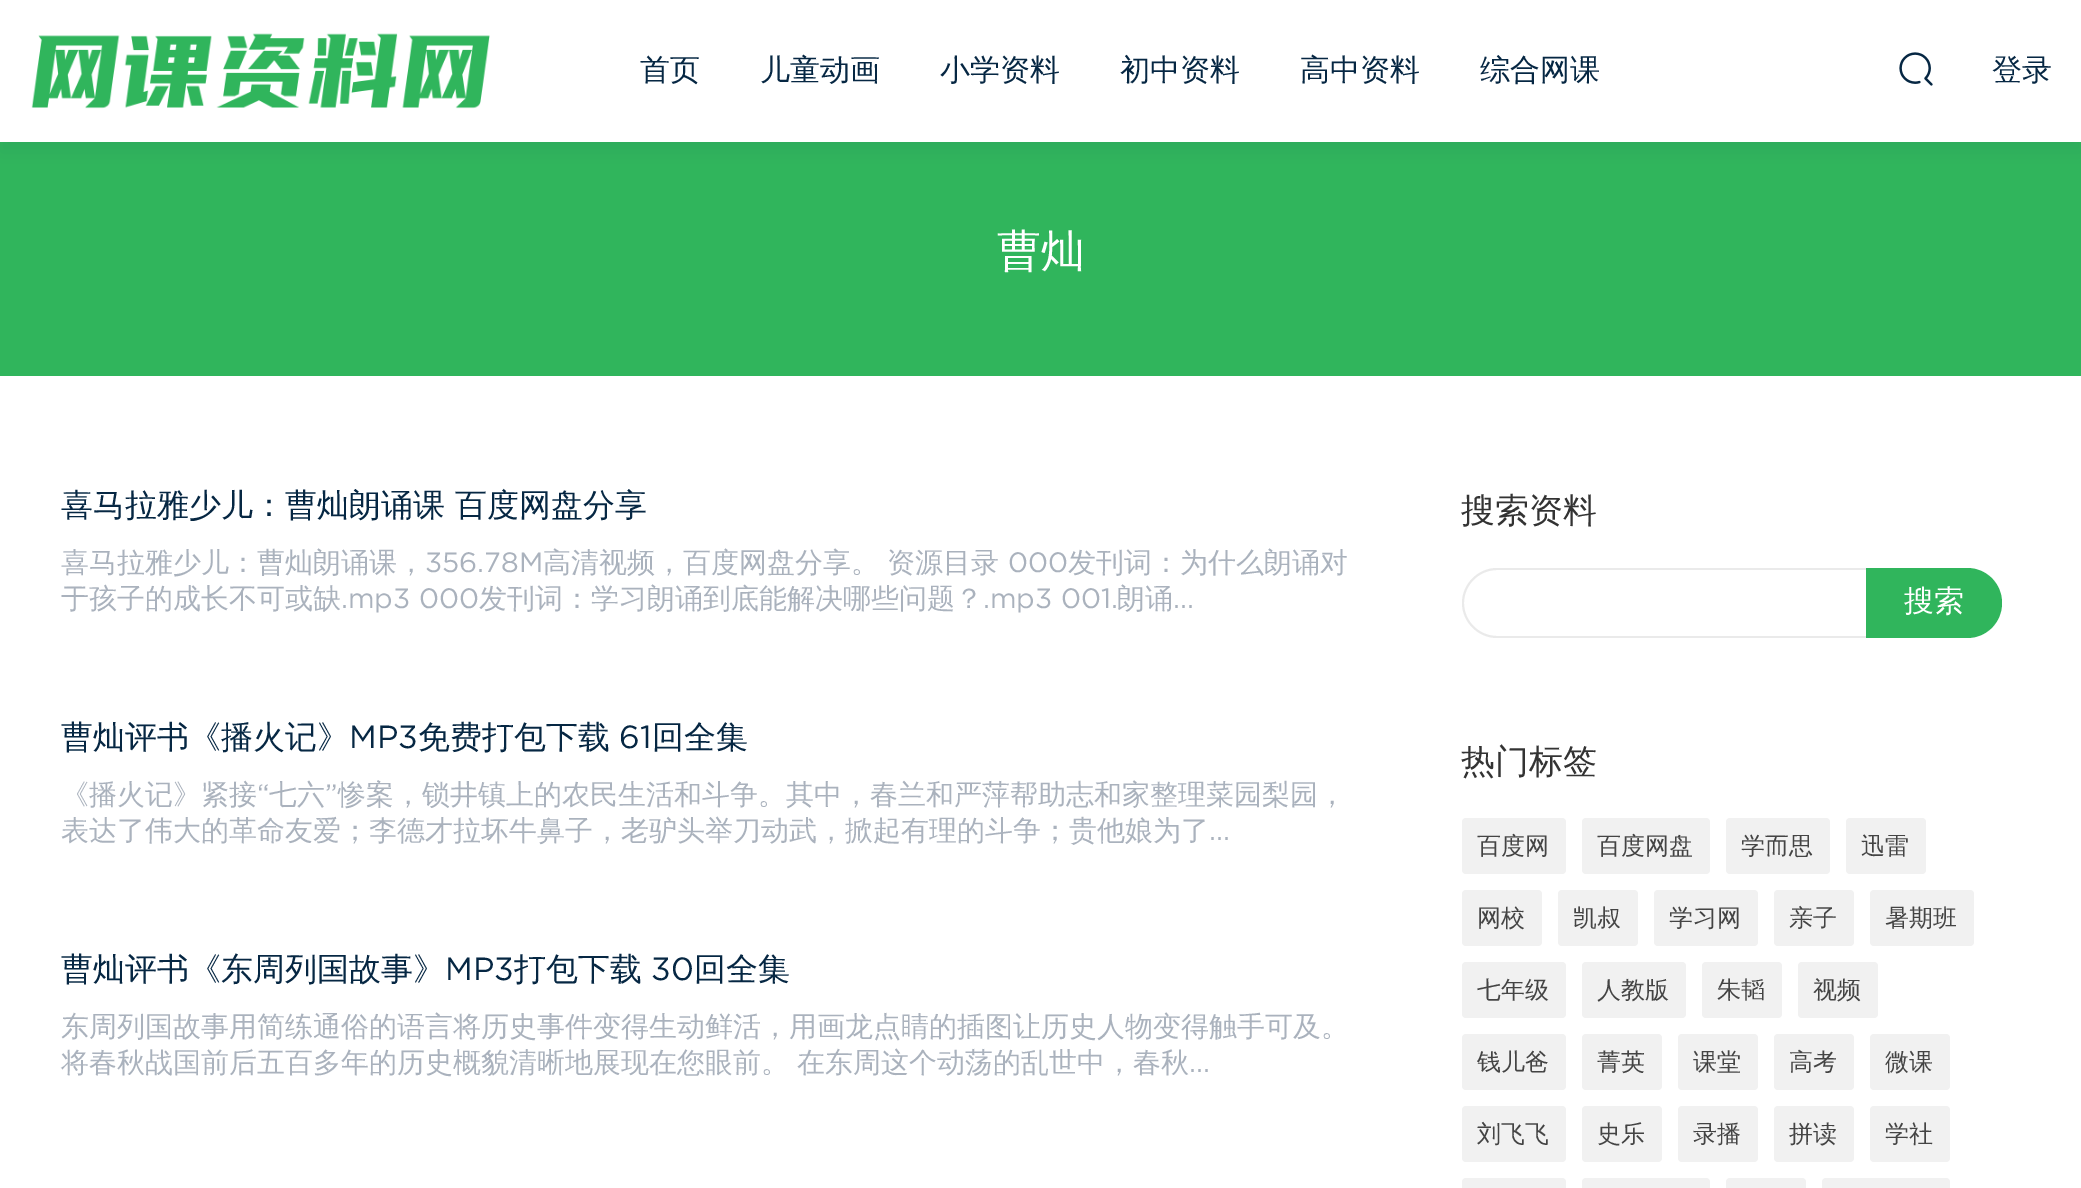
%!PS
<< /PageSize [2081 1188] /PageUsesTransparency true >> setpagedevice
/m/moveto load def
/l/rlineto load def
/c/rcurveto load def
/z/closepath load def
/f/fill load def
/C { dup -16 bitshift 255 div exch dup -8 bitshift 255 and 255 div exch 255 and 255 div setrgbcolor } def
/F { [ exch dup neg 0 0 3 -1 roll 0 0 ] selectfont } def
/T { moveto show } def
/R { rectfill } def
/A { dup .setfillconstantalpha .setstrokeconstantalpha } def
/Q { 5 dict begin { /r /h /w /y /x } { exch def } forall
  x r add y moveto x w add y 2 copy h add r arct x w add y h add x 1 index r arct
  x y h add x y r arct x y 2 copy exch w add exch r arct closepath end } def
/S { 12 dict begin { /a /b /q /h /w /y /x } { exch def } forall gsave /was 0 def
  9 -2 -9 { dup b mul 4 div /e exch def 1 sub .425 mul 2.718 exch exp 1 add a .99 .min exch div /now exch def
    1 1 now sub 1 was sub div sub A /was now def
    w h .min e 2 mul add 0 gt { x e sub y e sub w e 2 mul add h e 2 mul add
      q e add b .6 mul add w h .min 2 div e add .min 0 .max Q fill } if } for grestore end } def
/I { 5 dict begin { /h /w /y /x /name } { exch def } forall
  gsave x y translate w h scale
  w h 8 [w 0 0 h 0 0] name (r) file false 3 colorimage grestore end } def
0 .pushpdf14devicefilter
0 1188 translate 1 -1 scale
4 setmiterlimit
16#FFFFFF C
0 0 2081 1188 R
16#30B55C C
0 142 2081 234 R
16#113A5D C
0 10 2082 142 0 10 .1 S
16#FFFFFF C
0 0 2081 142 R
(1.rgb) 31 33 459 76 I
/WenQuanYiZenHei-Medium 30 F
16#062743 C
(首页) 640 80 T
(儿童动画) 760 80 T
(小学资料) 940 80 T
(初中资料) 1120 80 T
(高中资料) 1300 80 T
(综合网课) 1480 80 T
(2.rgb) 1899 52 34 34 I
(登录) 1992 80 T
/WenQuanYiZenHei-Medium 44 F
16#FFFFFF C
(曹灿) 997 266 T
/WenQuanYiZenHei-Medium 32 F
16#062743 C
(喜马拉雅少儿：曹灿朗诵课 百度网盘分享) 61 516 T
/WenQuanYiZenHei-Medium 28 F
16#AAB2BD C
(喜马拉雅少儿：曹灿朗诵课，) 61 572 T
/Gotham-Regular 28 F
(356.78M) 425 572 T
/WenQuanYiZenHei-Medium 28 F
(高清视频，百度网盘分享。 资源目录) 543 572 T
/Gotham-Regular 28 F
(000) 1008 572 T
/WenQuanYiZenHei-Medium 28 F
(发刊词：为什么朗诵对) 1068 572 T
(于孩子的成长不可或缺) 61 608 T
/Gotham-Regular 28 F
(.mp3 000) 341 608 T
/WenQuanYiZenHei-Medium 28 F
(发刊词：学习朗诵到底能解决哪些问题？) 479 608 T
/Gotham-Regular 28 F
(.mp3 001.) 983 608 T
/WenQuanYiZenHei-Medium 28 F
(朗诵) 1117 608 T
/Gotham-Regular 28 F
(...) 1173 608 T
/WenQuanYiZenHei-Medium 32 F
16#062743 C
(曹灿评书《播火记》) 61 748 T
/Gotham-Regular 32 F
(MP3) 349 748 T
/WenQuanYiZenHei-Medium 32 F
(免费打包下载) 418 748 T
/Gotham-Regular 32 F
(61) 619 748 T
/WenQuanYiZenHei-Medium 32 F
(回全集) 652 748 T
/WenQuanYiZenHei-Medium 28 F
16#AAB2BD C
(《播火记》紧接) 61 804 T
/Gotham-Regular 28 F
(“) 257 804 T
/WenQuanYiZenHei-Medium 28 F
(七六) 269 804 T
/Gotham-Regular 28 F
(”) 325 804 T
/WenQuanYiZenHei-Medium 28 F
(惨案，锁井镇上的农民生活和斗争。其中，春兰和严萍帮助志和家整理菜园梨园，) 338 804 T
(表达了伟大的革命友爱；李德才拉坏牛鼻子，老驴头举刀动武，掀起有理的斗争；贵他娘为了) 61 840 T
/Gotham-Regular 28 F
(...) 1209 840 T
/WenQuanYiZenHei-Medium 32 F
16#062743 C
(曹灿评书《东周列国故事》) 61 980 T
/Gotham-Regular 32 F
(MP3) 445 980 T
/WenQuanYiZenHei-Medium 32 F
(打包下载) 514 980 T
/Gotham-Regular 32 F
(30) 651 980 T
/WenQuanYiZenHei-Medium 32 F
(回全集) 694 980 T
/WenQuanYiZenHei-Medium 28 F
16#AAB2BD C
(东周列国故事用简练通俗的语言将历史事件变得生动鲜活，用画龙点睛的插图让历史人物变得触手可及。) 61 1036 T
(将春秋战国前后五百多年的历史概貌清晰地展现在您眼前。 在东周这个动荡的乱世中，春秋) 61 1072 T
/Gotham-Regular 28 F
(...) 1189 1072 T
/WenQuanYiZenHei-Medium 34 F
16#333333 C
(搜索资料) 1461 522 T
16#EAEAEA C
1497 568 m 369 0 l 0 70 l -369 0 l -19 0 -35 -16 -35 -35 c 0 -19 16 -35 35 -35 c z 1497 570 m 369 0 l 0 66 l -369 0 l -18 0 -33 -15 -33 -33 c 0 -18 15 -33 33 -33 c z eofill
16#30B55C C
1866 568 m 101 0 l 19.5 0 35 15.5 35 35 c 0 19.5 -15.5 35 -35 35 c -101 0 l z f
/WenQuanYiZenHei-Medium 30 F
16#FFFFFF C
(搜索) 1904 611 T
/WenQuanYiZenHei-Medium 34 F
16#333333 C
(热门标签) 1461 773 T
16#F1F1F1 C
1462 818 104 56 4 Q f
/WenQuanYiZenHei-Medium 24 F
16#444444 C
(百度网) 1477 854 T
16#F1F1F1 C
1582 818 128 56 4 Q f
16#444444 C
(百度网盘) 1597 854 T
16#F1F1F1 C
1726 818 104 56 4 Q f
16#444444 C
(学而思) 1741 854 T
16#F1F1F1 C
1846 818 80 56 4 Q f
16#444444 C
(迅雷) 1861 854 T
16#F1F1F1 C
1462 890 80 56 4 Q f
16#444444 C
(网校) 1477 926 T
16#F1F1F1 C
1558 890 80 56 4 Q f
16#444444 C
(凯叔) 1573 926 T
16#F1F1F1 C
1654 890 104 56 4 Q f
16#444444 C
(学习网) 1669 926 T
16#F1F1F1 C
1774 890 80 56 4 Q f
16#444444 C
(亲子) 1789 926 T
16#F1F1F1 C
1870 890 104 56 4 Q f
16#444444 C
(暑期班) 1885 926 T
16#F1F1F1 C
1462 962 104 56 4 Q f
16#444444 C
(七年级) 1477 998 T
16#F1F1F1 C
1582 962 104 56 4 Q f
16#444444 C
(人教版) 1597 998 T
16#F1F1F1 C
1702 962 80 56 4 Q f
16#444444 C
(朱韬) 1717 998 T
16#F1F1F1 C
1798 962 80 56 4 Q f
16#444444 C
(视频) 1813 998 T
16#F1F1F1 C
1462 1034 104 56 4 Q f
16#444444 C
(钱儿爸) 1477 1070 T
16#F1F1F1 C
1582 1034 80 56 4 Q f
16#444444 C
(菁英) 1597 1070 T
16#F1F1F1 C
1678 1034 80 56 4 Q f
16#444444 C
(课堂) 1693 1070 T
16#F1F1F1 C
1774 1034 80 56 4 Q f
16#444444 C
(高考) 1789 1070 T
16#F1F1F1 C
1870 1034 80 56 4 Q f
16#444444 C
(微课) 1885 1070 T
16#F1F1F1 C
1462 1106 104 56 4 Q f
16#444444 C
(刘飞飞) 1477 1142 T
16#F1F1F1 C
1582 1106 80 56 4 Q f
16#444444 C
(史乐) 1597 1142 T
16#F1F1F1 C
1678 1106 80 56 4 Q f
16#444444 C
(录播) 1693 1142 T
16#F1F1F1 C
1774 1106 80 56 4 Q f
16#444444 C
(拼读) 1789 1142 T
16#F1F1F1 C
1870 1106 80 56 4 Q f
16#444444 C
(学社) 1885 1142 T
16#F1F1F1 C
1462 1178 104 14 4 Q f
1582 1178 128 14 4 Q f
1726 1178 80 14 4 Q f
1822 1178 128 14 4 Q f
.poppdf14devicefilter showpage
